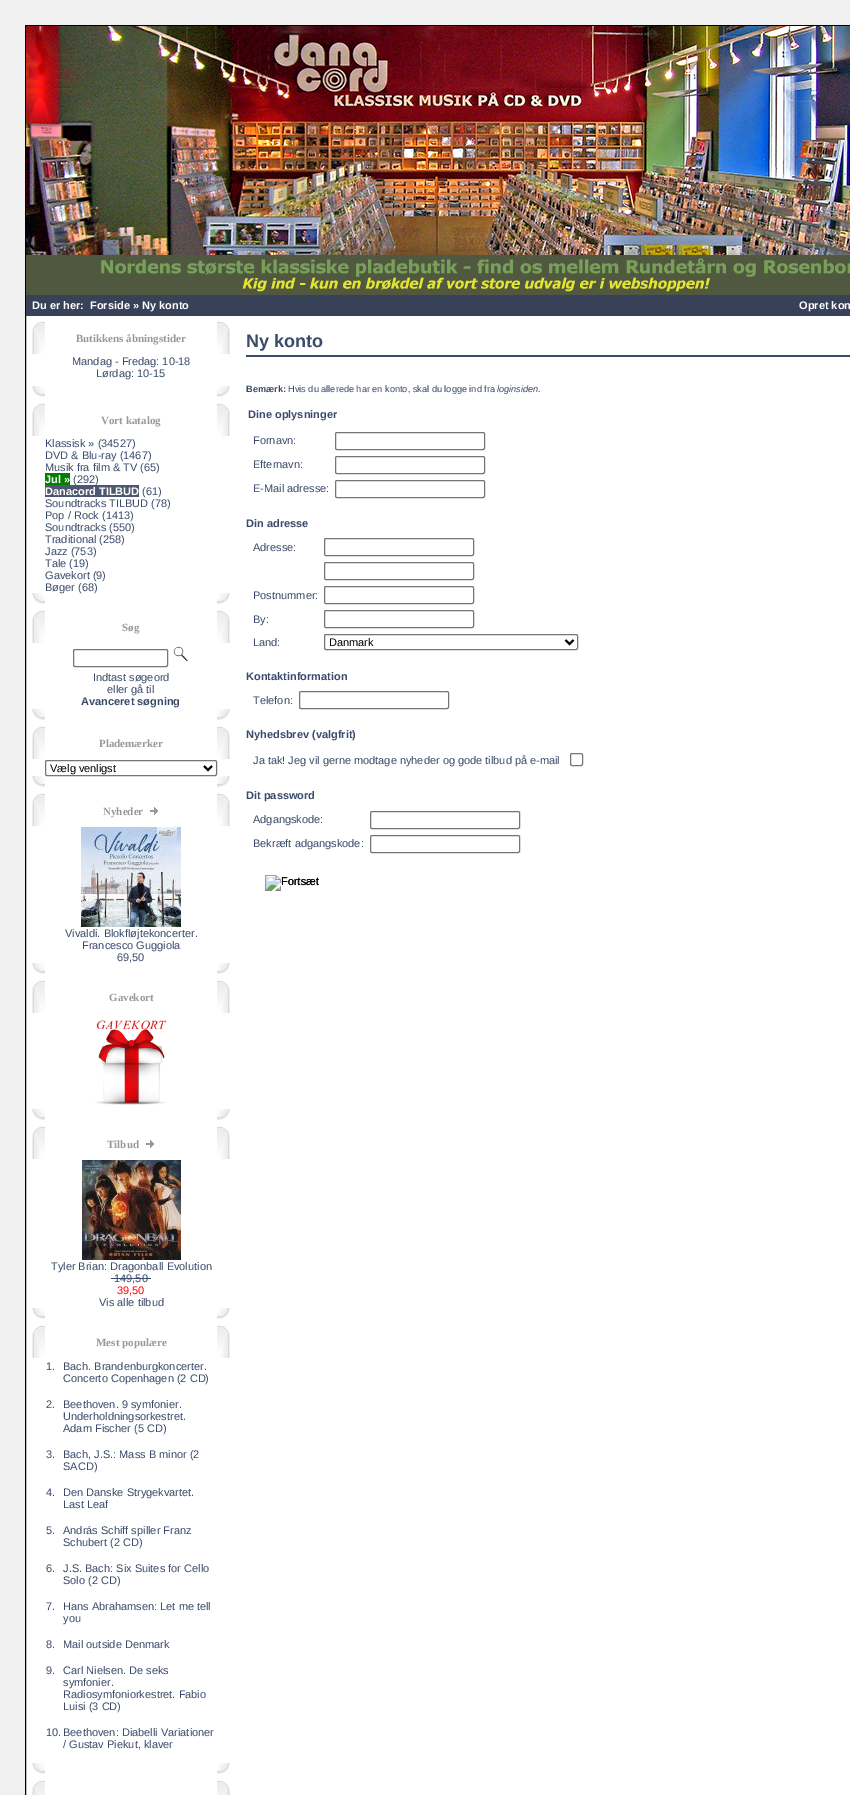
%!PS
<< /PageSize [850 1795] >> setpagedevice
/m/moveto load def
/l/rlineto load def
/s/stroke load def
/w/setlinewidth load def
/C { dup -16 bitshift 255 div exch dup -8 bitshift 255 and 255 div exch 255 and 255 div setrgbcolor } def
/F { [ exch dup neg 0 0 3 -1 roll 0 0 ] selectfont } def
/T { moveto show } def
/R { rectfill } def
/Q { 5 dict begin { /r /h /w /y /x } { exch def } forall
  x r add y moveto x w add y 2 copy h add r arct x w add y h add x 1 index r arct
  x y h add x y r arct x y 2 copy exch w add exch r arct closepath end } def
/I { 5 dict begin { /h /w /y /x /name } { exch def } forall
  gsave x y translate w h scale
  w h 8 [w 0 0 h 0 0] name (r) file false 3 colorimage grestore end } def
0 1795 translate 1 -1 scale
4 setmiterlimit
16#F0F0F0 C
0 0 850 1795 R
16#FFFFFF C
26 316 824 1479 R
16#000000 C
25.5 25.5 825 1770 rectstroke
16#374158 C
26 295 824 21 R
(1.rgb) 26 26 824 269 I
/LiberationSans-Bold 11 F
16#FFFFFF C
(Du er her:) 32 309 T
(Forside » Ny konto) 90 309 T
(Opret kon) 799 309 T
(2.rgb) 32 321 13 33 I
/LiberationSerif-Bold 11 F
16#999999 C
(Butikkens åbningstider) 76 342 T
(3.rgb) 217 321 13 33 I
/LiberationSans-Regular 11 F
16#3A4A69 C
(Mandag - Fredag: 10-18) 72 365 T
(Lørdag: 10-15) 96 377 T
(4.rgb) 32 386 13 11 I
(5.rgb) 217 386 13 11 I
(2.rgb) 32 403 13 33 I
/LiberationSerif-Bold 11 F
16#999999 C
(Vort katalog) 101 424 T
(3.rgb) 217 403 13 33 I
/LiberationSans-Regular 11 F
16#3A4A69 C
(Klassisk » \(34527\)) 45 447 T
(DVD & Blu-ray \(1467\)) 45 459 T
(Musik fra film & TV \(65\)) 45 471 T
16#008000 C
45 473 25 12 R
/LiberationSans-Bold 11 F
16#FFFFFF C
(Jul ») 45 483 T
/LiberationSans-Regular 11 F
16#3A4A69 C
(\(292\)) 73 483 T
16#4D5771 C
45 485 94 12 R
/LiberationSans-Bold 11 F
16#FFFFFF C
(Danacord TILBUD) 45 495 T
/LiberationSans-Regular 11 F
16#3A4A69 C
(\(61\)) 142 495 T
(Soundtracks TILBUD \(78\)) 45 507 T
(Pop / Rock \(1413\)) 45 519 T
(Soundtracks \(550\)) 45 531 T
(Traditional \(258\)) 45 543 T
(Jazz \(753\)) 45 555 T
(Tale \(19\)) 45 567 T
(Gavekort \(9\)) 45 579 T
(Bøger \(68\)) 45 591 T
(4.rgb) 32 593 13 11 I
(5.rgb) 217 593 13 11 I
(2.rgb) 32 610 13 33 I
/LiberationSerif-Bold 11 F
16#999999 C
(Søg) 122 631 T
(3.rgb) 217 610 13 33 I
16#767676 C
73.5 649.5 94 17 1.5 Q s
(6.rgb) 173 646 16 16 I
/LiberationSans-Regular 11 F
16#3A4A69 C
(Indtast søgeord) 93 681 T
(eller gå til) 107 693 T
/LiberationSans-Bold 11 F
(Avanceret søgning) 81 705 T
(4.rgb) 32 709 13 11 I
(5.rgb) 217 709 13 11 I
(2.rgb) 32 726 13 33 I
/LiberationSerif-Bold 11 F
16#999999 C
(Plademærker) 99 747 T
(3.rgb) 217 726 13 33 I
16#767676 C
45.5 760.5 171 15 1.5 Q s
16#000000 C
2 w
204 766 m 4 4 l 4 -4 l s
/LiberationSans-Regular 11 F
(Vælg venligst) 50 772 T
(4.rgb) 32 776 13 11 I
(5.rgb) 217 776 13 11 I
(2.rgb) 32 793 13 33 I
/LiberationSerif-Bold 11 F
16#999999 C
(Nyheder) 103 815 T
(7.rgb) 150 807 8 8 I
(3.rgb) 217 793 13 33 I
(8.rgb) 81 827 100 100 I
/LiberationSans-Regular 11 F
16#3A4A69 C
(Vivaldi. Blokfløjtekoncerter.) 65 937 T
(Francesco Guggiola) 82 949 T
(69,50) 117 961 T
(4.rgb) 32 963 13 11 I
(5.rgb) 217 963 13 11 I
(2.rgb) 32 980 13 33 I
/LiberationSerif-Bold 11 F
16#999999 C
(Gavekort) 109 1001 T
(3.rgb) 217 980 13 33 I
(9.rgb) 94 1020 73 85 I
(4.rgb) 32 1109 13 11 I
(5.rgb) 217 1109 13 11 I
(2.rgb) 32 1126 13 33 I
(Tilbud) 107 1148 T
(7.rgb) 146 1140 8 8 I
(3.rgb) 217 1126 13 33 I
(10.rgb) 82 1160 99 100 I
/LiberationSans-Regular 11 F
16#3A4A69 C
(Tyler Brian: Dragonball Evolution) 51 1270 T
(149,50) 114 1282 T
111 1278 40 1 R
16#FF0000 C
(39,50) 117 1294 T
16#3A4A69 C
(Vis alle tilbud) 99 1306 T
(4.rgb) 32 1308 13 11 I
(5.rgb) 217 1308 13 11 I
(2.rgb) 32 1325 13 33 I
/LiberationSerif-Bold 11 F
16#999999 C
(Mest populære) 96 1346 T
(3.rgb) 217 1325 13 33 I
/LiberationSans-Regular 11 F
16#3A4A69 C
(1.) 46 1370 T
(Bach. Brandenburgkoncerter.) 63 1370 T
(Concerto Copenhagen \(2 CD\)) 63 1382 T
(2.) 46 1408 T
(Beethoven. 9 symfonier.) 63 1408 T
(Underholdningsorkestret.) 63 1420 T
(Adam Fischer \(5 CD\)) 63 1432 T
(3.) 46 1458 T
(Bach, J.S.: Mass B minor \(2) 63 1458 T
(SACD\)) 63 1470 T
(4.) 46 1496 T
(Den Danske Strygekvartet.) 63 1496 T
(Last Leaf) 63 1508 T
(5.) 46 1534 T
(András Schiff spiller Franz) 63 1534 T
(Schubert \(2 CD\)) 63 1546 T
(6.) 46 1572 T
(J.S. Bach: Six Suites for Cello) 63 1572 T
(Solo \(2 CD\)) 63 1584 T
(7.) 46 1610 T
(Hans Abrahamsen: Let me tell) 63 1610 T
(you) 63 1622 T
(8.) 46 1648 T
(Mail outside Denmark) 63 1648 T
(9.) 46 1674 T
(Carl Nielsen. De seks) 63 1674 T
(symfonier.) 63 1686 T
(Radiosymfoniorkestret. Fabio) 63 1698 T
(Luisi \(3 CD\)) 63 1710 T
(10.) 46 1736 T
(Beethoven: Diabelli Variationer) 63 1736 T
(/ Gustav Piekut, klaver) 63 1748 T
(4.rgb) 32 1763 13 11 I
(5.rgb) 217 1763 13 11 I
(11.rgb) 32 1780 13 15 I
(12.rgb) 217 1780 13 15 I
246 355 604 2 R
/LiberationSans-Bold 18 F
(Ny konto) 246 347 T
/LiberationSans-Bold 9.2 F
(Bemærk:) 246 392 T
/LiberationSans-Regular 9.2 F
(Hvis du allerede har en konto, skal du logge ind fra) 288 392 T
/LiberationSans-Italic 9.2 F
(loginsiden) 497 392 T
/LiberationSans-Regular 9.2 F
(.) 538 392 T
/LiberationSans-Bold 11 F
(Dine oplysninger) 248 418 T
/LiberationSans-Regular 11 F
(Fornavn:) 253 444 T
16#767676 C
1 w
335.5 432.5 149 17 1.5 Q s
16#3A4A69 C
(Efternavn:) 253 468 T
16#767676 C
335.5 456.5 149 17 1.5 Q s
16#3A4A69 C
(E-Mail adresse:) 253 492 T
16#767676 C
335.5 480.5 149 17 1.5 Q s
/LiberationSans-Bold 11 F
16#3A4A69 C
(Din adresse) 246 527 T
/LiberationSans-Regular 11 F
(Adresse:) 253 551 T
16#767676 C
324.5 538.5 149 17 1.5 Q s
324.5 562.5 149 17 1.5 Q s
16#3A4A69 C
(Postnummer:) 253 599 T
16#767676 C
324.5 586.5 149 17 1.5 Q s
16#3A4A69 C
(By:) 253 623 T
16#767676 C
324.5 610.5 149 17 1.5 Q s
16#3A4A69 C
(Land:) 253 646 T
16#767676 C
324.5 634.5 253 15 1.5 Q s
16#000000 C
2 w
565.5 640 m 4 4 l 4 -4 l s
(Danmark) 329 646 T
/LiberationSans-Bold 11 F
16#3A4A69 C
(Kontaktinformation) 246 680 T
/LiberationSans-Regular 11 F
(Telefon:) 253 704 T
16#767676 C
1 w
299.5 691.5 149 17 1.5 Q s
/LiberationSans-Bold 11 F
16#3A4A69 C
(Nyhedsbrev \(valgfrit\)) 246 738 T
/LiberationSans-Regular 11 F
(Ja tak! Jeg vil gerne modtage nyheder og gode tilbud på e-mail) 253 764 T
16#767676 C
570.5 753.5 12 12 1.5 Q s
/LiberationSans-Bold 11 F
16#3A4A69 C
(Dit password) 246 799 T
/LiberationSans-Regular 11 F
(Adgangskode:) 253 823 T
16#767676 C
370.5 811.5 149 17 1.5 Q s
16#3A4A69 C
(Bekræft adgangskode:) 253 847 T
16#767676 C
370.5 835.5 149 17 1.5 Q s
(13.rgb) 265 875 54 16 I
16#000000 C
(Fortsæt) 281 885 T
showpage
